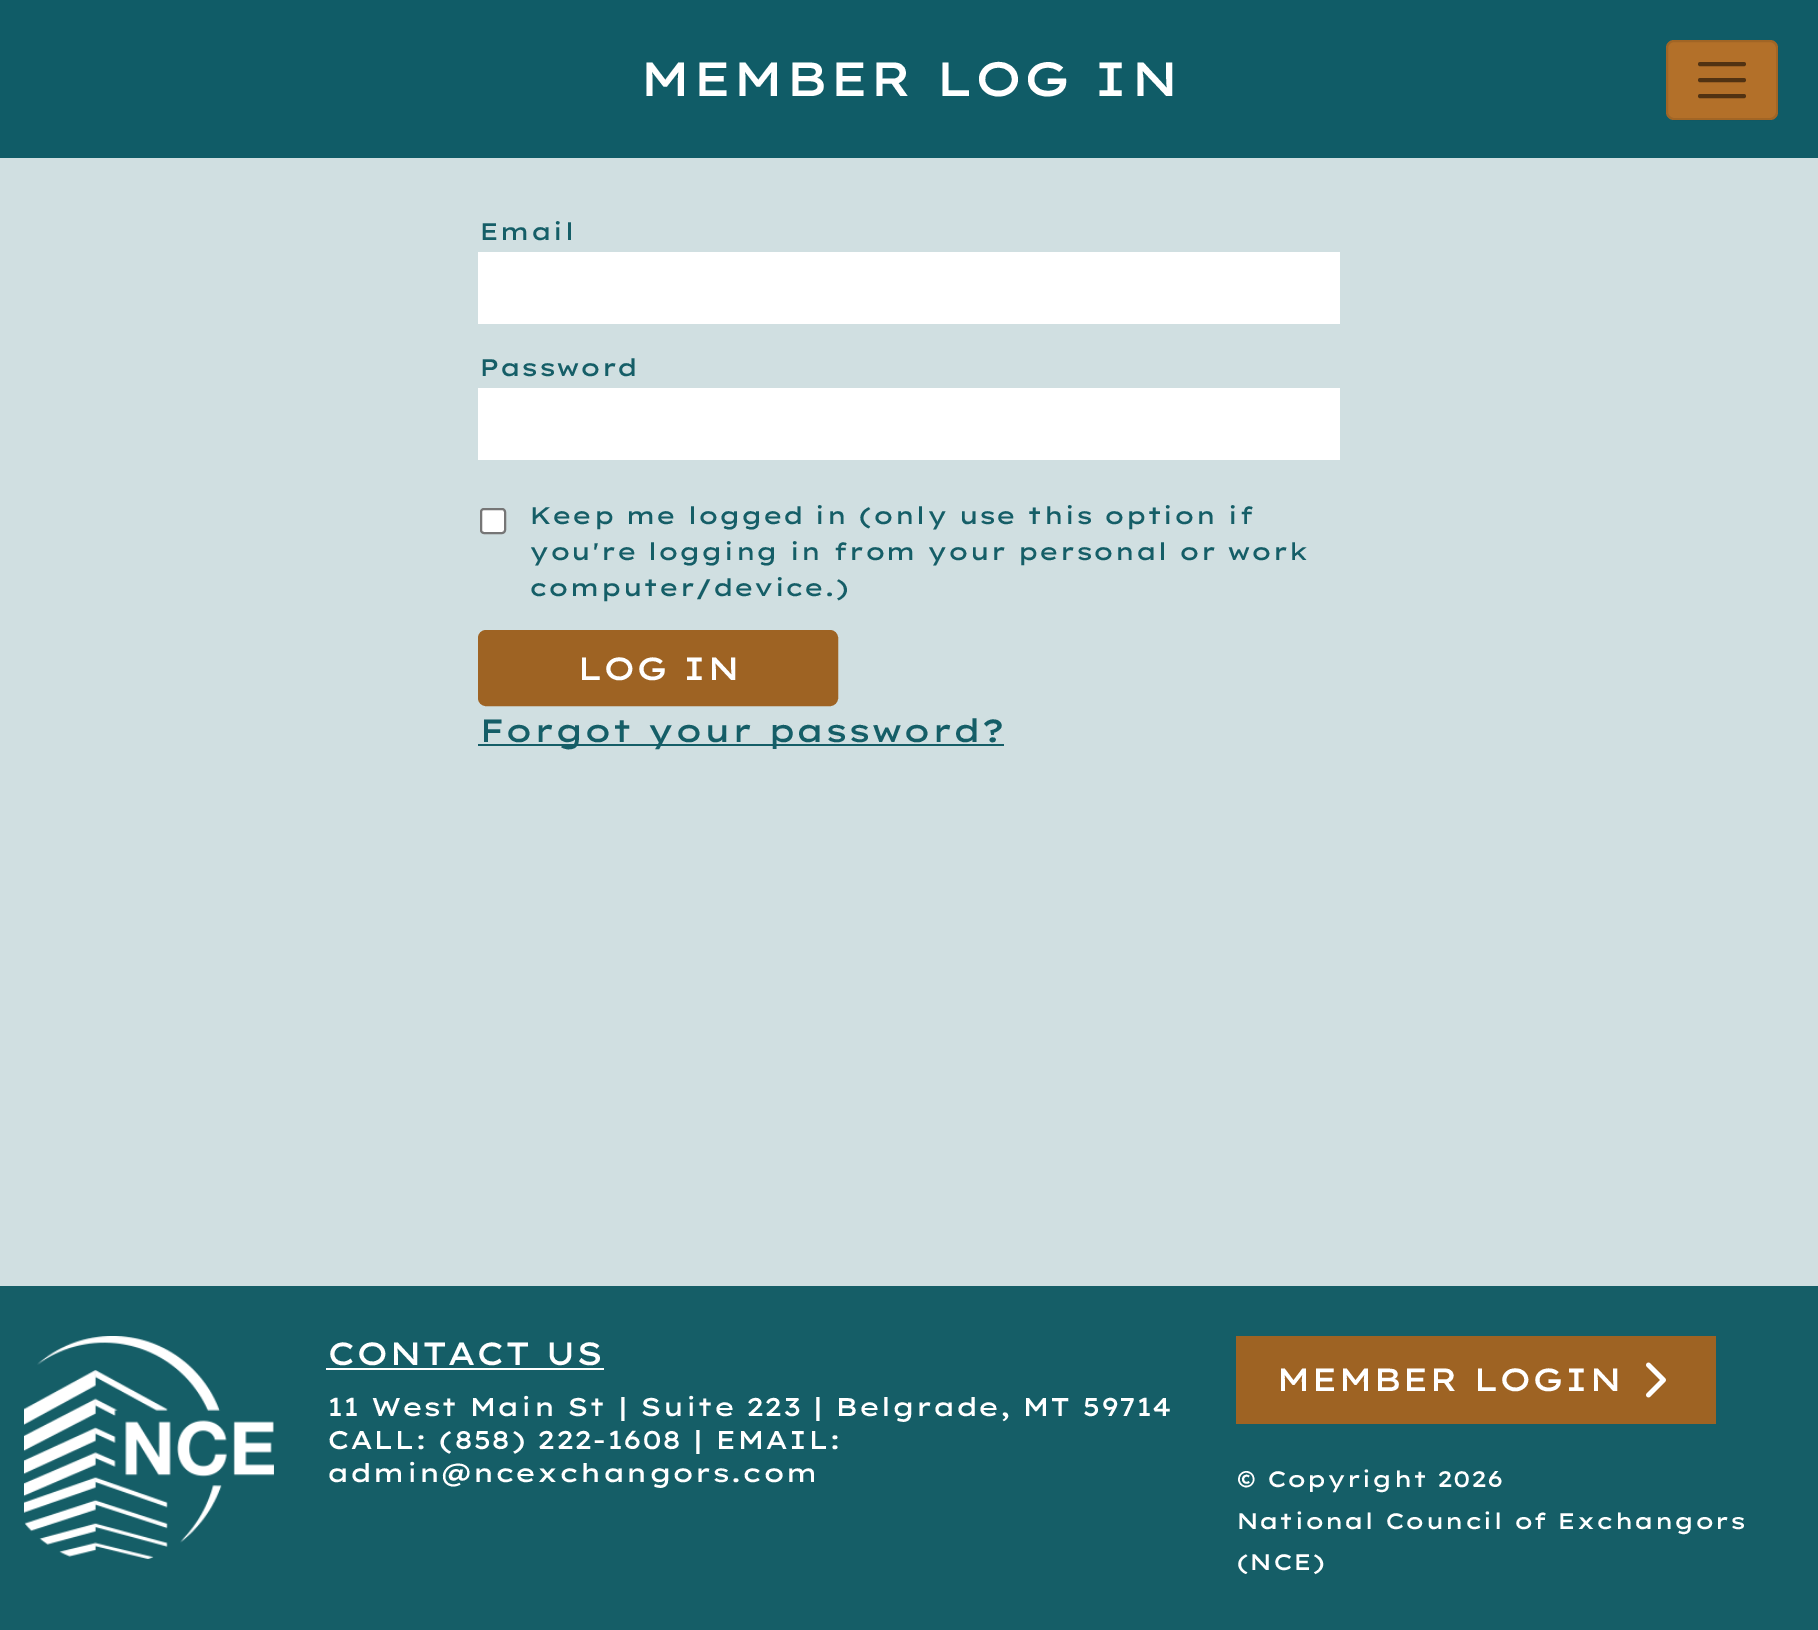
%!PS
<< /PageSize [1818 1630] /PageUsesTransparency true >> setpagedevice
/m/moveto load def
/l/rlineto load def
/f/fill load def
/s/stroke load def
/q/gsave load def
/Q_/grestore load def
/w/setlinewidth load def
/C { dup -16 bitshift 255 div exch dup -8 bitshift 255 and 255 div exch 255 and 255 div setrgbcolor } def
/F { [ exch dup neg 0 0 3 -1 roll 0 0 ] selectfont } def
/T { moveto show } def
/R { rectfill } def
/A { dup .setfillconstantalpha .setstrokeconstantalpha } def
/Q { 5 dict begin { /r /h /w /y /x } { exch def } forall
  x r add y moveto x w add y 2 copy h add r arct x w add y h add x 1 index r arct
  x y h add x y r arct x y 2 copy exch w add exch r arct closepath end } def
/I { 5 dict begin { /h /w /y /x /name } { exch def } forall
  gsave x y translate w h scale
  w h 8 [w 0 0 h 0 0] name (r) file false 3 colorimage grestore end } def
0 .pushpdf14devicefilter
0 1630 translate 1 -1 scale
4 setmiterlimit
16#D0DFE1 C
0 0 1818 1630 R
16#105C67 C
0 0 1818 158 R
/LexendPeta-Medium 48 F
16#FFFFFF C
(MEMBER LOG IN) 639 96 T
/LexendPeta-Medium 24 F
16#155E67 C
(Email) 479 240 T
16#FFFFFF C
478 252 862 72 R
16#155E67 C
(Password) 479 376 T
16#FFFFFF C
478 388 862 72 R
481 509 24 24 3 Q q f Q_
16#767676 C
2 w
s
16#155E67 C
(Keep me logged in \(only use this option if) 529 524 T
(you're logging in from your personal or work) 529 560 T
(computer/device.\)) 529 596 T
16#9E6323 C
479 631 358 74 7 Q q f Q_
s
/LexendPeta-Medium 32 F
16#FFFFFF C
(LOG IN) 577 680 T
16#155E67 C
478 744 526 2 R
(Forgot your password?) 479 742 T
16#B37029 C
1666 40 112 80 8 Q f
0.1 A
16#000000 C
1667 41 110 78 7 Q s
1 A
16#513212 C
4 w
1 setlinecap
1700 64 m 44 0 l 1700 80 m 44 0 l 1700 96 m 44 0 l s
16#155E67 C
0 1286 1818 344 R
(1.rgb) 24 1336 250 223 I
16#FFFFFF C
(CONTACT US) 327 1365 T
326 1368 278 2 R
/LexendPeta-Medium 25.6 F
(11 West Main St | Suite 223 | Belgrade, MT 59714) 327 1416 T
(CALL: \(858\) 222-1608 | EMAIL:) 327 1449 T
(admin@ncexchangors.com) 327 1482 T
16#9E6323 C
1236 1336 480 88 R
/LexendPeta-Medium 32 F
16#FFFFFF C
(MEMBER LOGIN) 1276 1391 T
(2.rgb) 1646 1362 20 36 I
/LexendPeta-Medium 22.4 F
(© Copyright 2026) 1236 1487 T
(National Council of Exchangors) 1236 1529 T
(\(NCE\)) 1236 1570 T
.poppdf14devicefilter showpage
